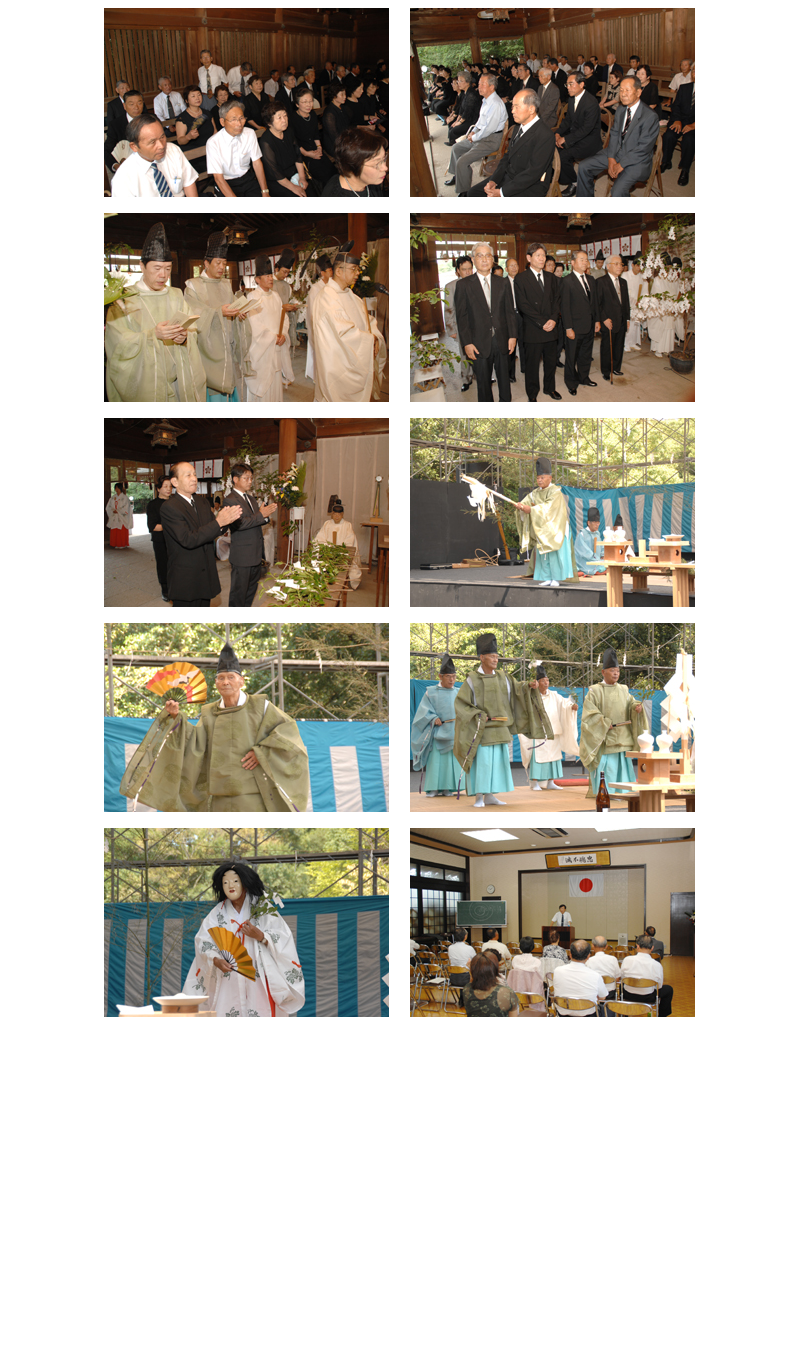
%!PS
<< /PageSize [800 1357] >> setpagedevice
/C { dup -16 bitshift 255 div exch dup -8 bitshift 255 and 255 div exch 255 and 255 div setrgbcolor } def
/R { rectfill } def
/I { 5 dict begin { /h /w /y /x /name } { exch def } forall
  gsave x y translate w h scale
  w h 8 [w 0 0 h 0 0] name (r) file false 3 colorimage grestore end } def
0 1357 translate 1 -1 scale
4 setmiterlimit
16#FFFFFF C
0 0 800 1357 R
(1.rgb) 104 8 285 189 I
(2.rgb) 410 8 285 189 I
(3.rgb) 104 213 285 189 I
(4.rgb) 410 213 285 189 I
(5.rgb) 104 418 285 189 I
(6.rgb) 410 418 285 189 I
(7.rgb) 104 623 285 189 I
(8.rgb) 410 623 285 189 I
(9.rgb) 104 828 285 189 I
(10.rgb) 410 828 285 189 I
showpage
